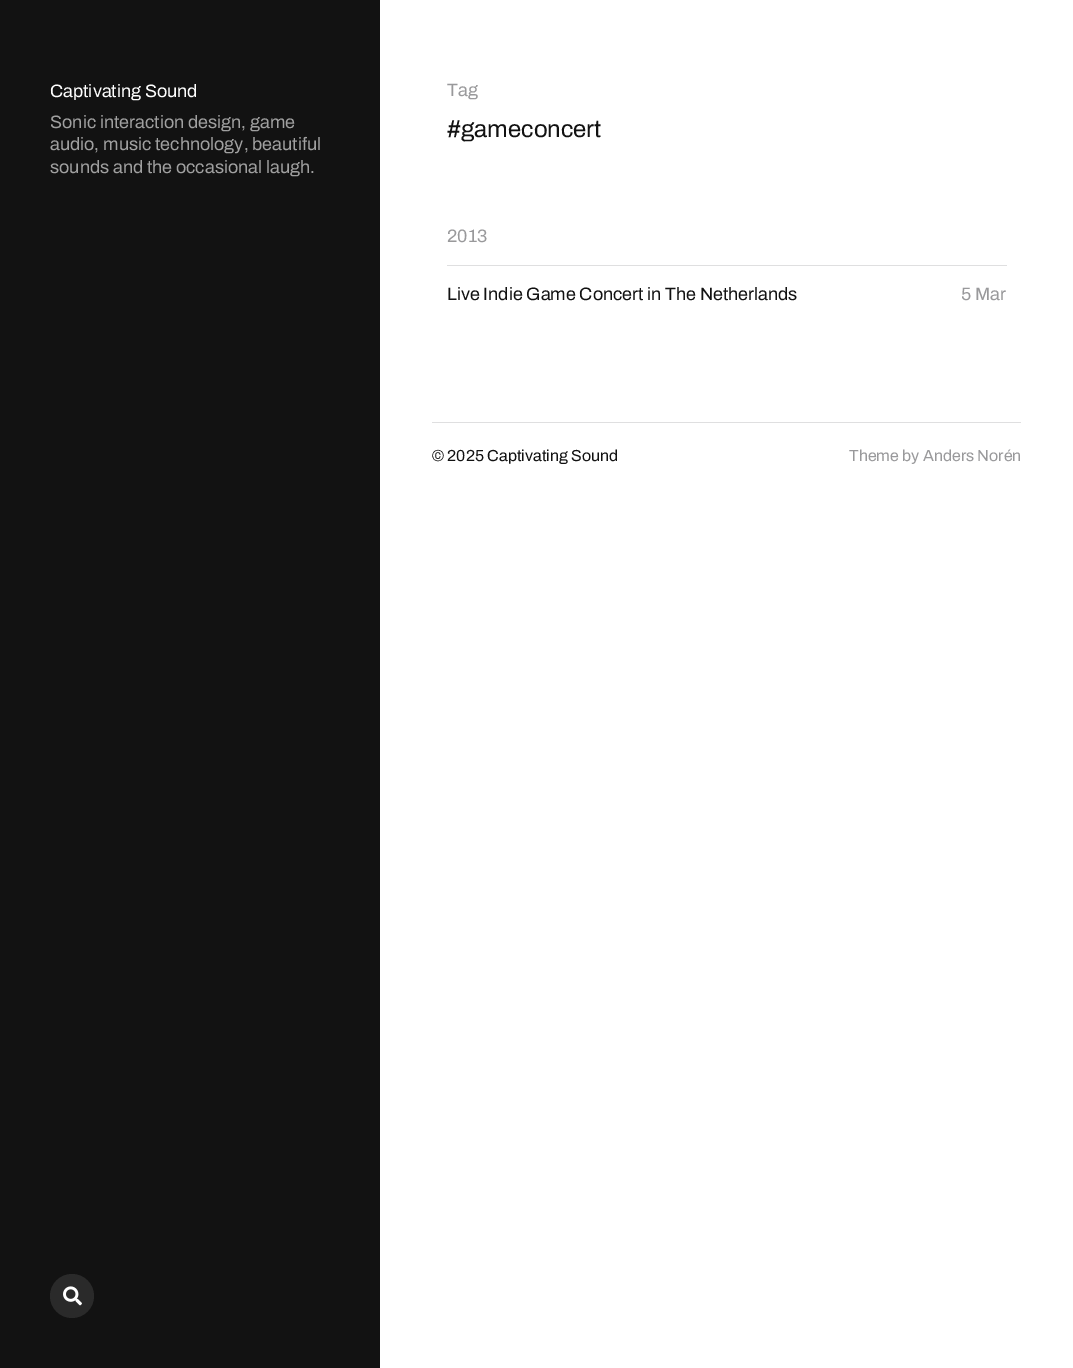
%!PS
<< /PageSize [1073 1368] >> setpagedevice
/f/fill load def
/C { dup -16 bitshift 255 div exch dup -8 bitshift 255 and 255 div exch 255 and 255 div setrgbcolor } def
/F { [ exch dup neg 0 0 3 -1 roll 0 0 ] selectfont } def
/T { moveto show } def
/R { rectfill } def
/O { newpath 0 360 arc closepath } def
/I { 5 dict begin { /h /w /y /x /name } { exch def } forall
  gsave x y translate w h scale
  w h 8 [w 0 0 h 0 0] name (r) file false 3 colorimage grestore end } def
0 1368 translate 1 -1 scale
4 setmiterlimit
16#FFFFFF C
0 0 1073 1368 R
16#121212 C
0 0 380 1368 R
/Archivo-Regular 18 F
16#FFFFFF C
(Captivating Sound) 50 97 T
16#A0A0A0 C
(Sonic interaction design, game) 50 128 T
(audio, music technology, beautiful) 50 150 T
(sounds and the occasional laugh.) 50 173 T
16#2A2A2A C
72 1296 22 O f
(1.rgb) 63 1286 19 20 I
16#99999B C
(Tag) 447 96 T
/Archivo-Regular 24 F
16#121212 C
(#gameconcert) 447 137 T
/Archivo-Regular 18 F
16#99999B C
(2013) 447 242 T
16#DFDFE0 C
447 265 560 1 R
16#121212 C
(Live Indie Game Concert in The Netherlands) 447 300 T
16#99999B C
(5 Mar) 961 300 T
16#DFDFE0 C
432 422 589 1 R
/Archivo-Regular 16 F
16#121212 C
(© 2025 Captivating Sound) 432 461 T
16#99999B C
(Theme by Anders Norén) 849 461 T
showpage
